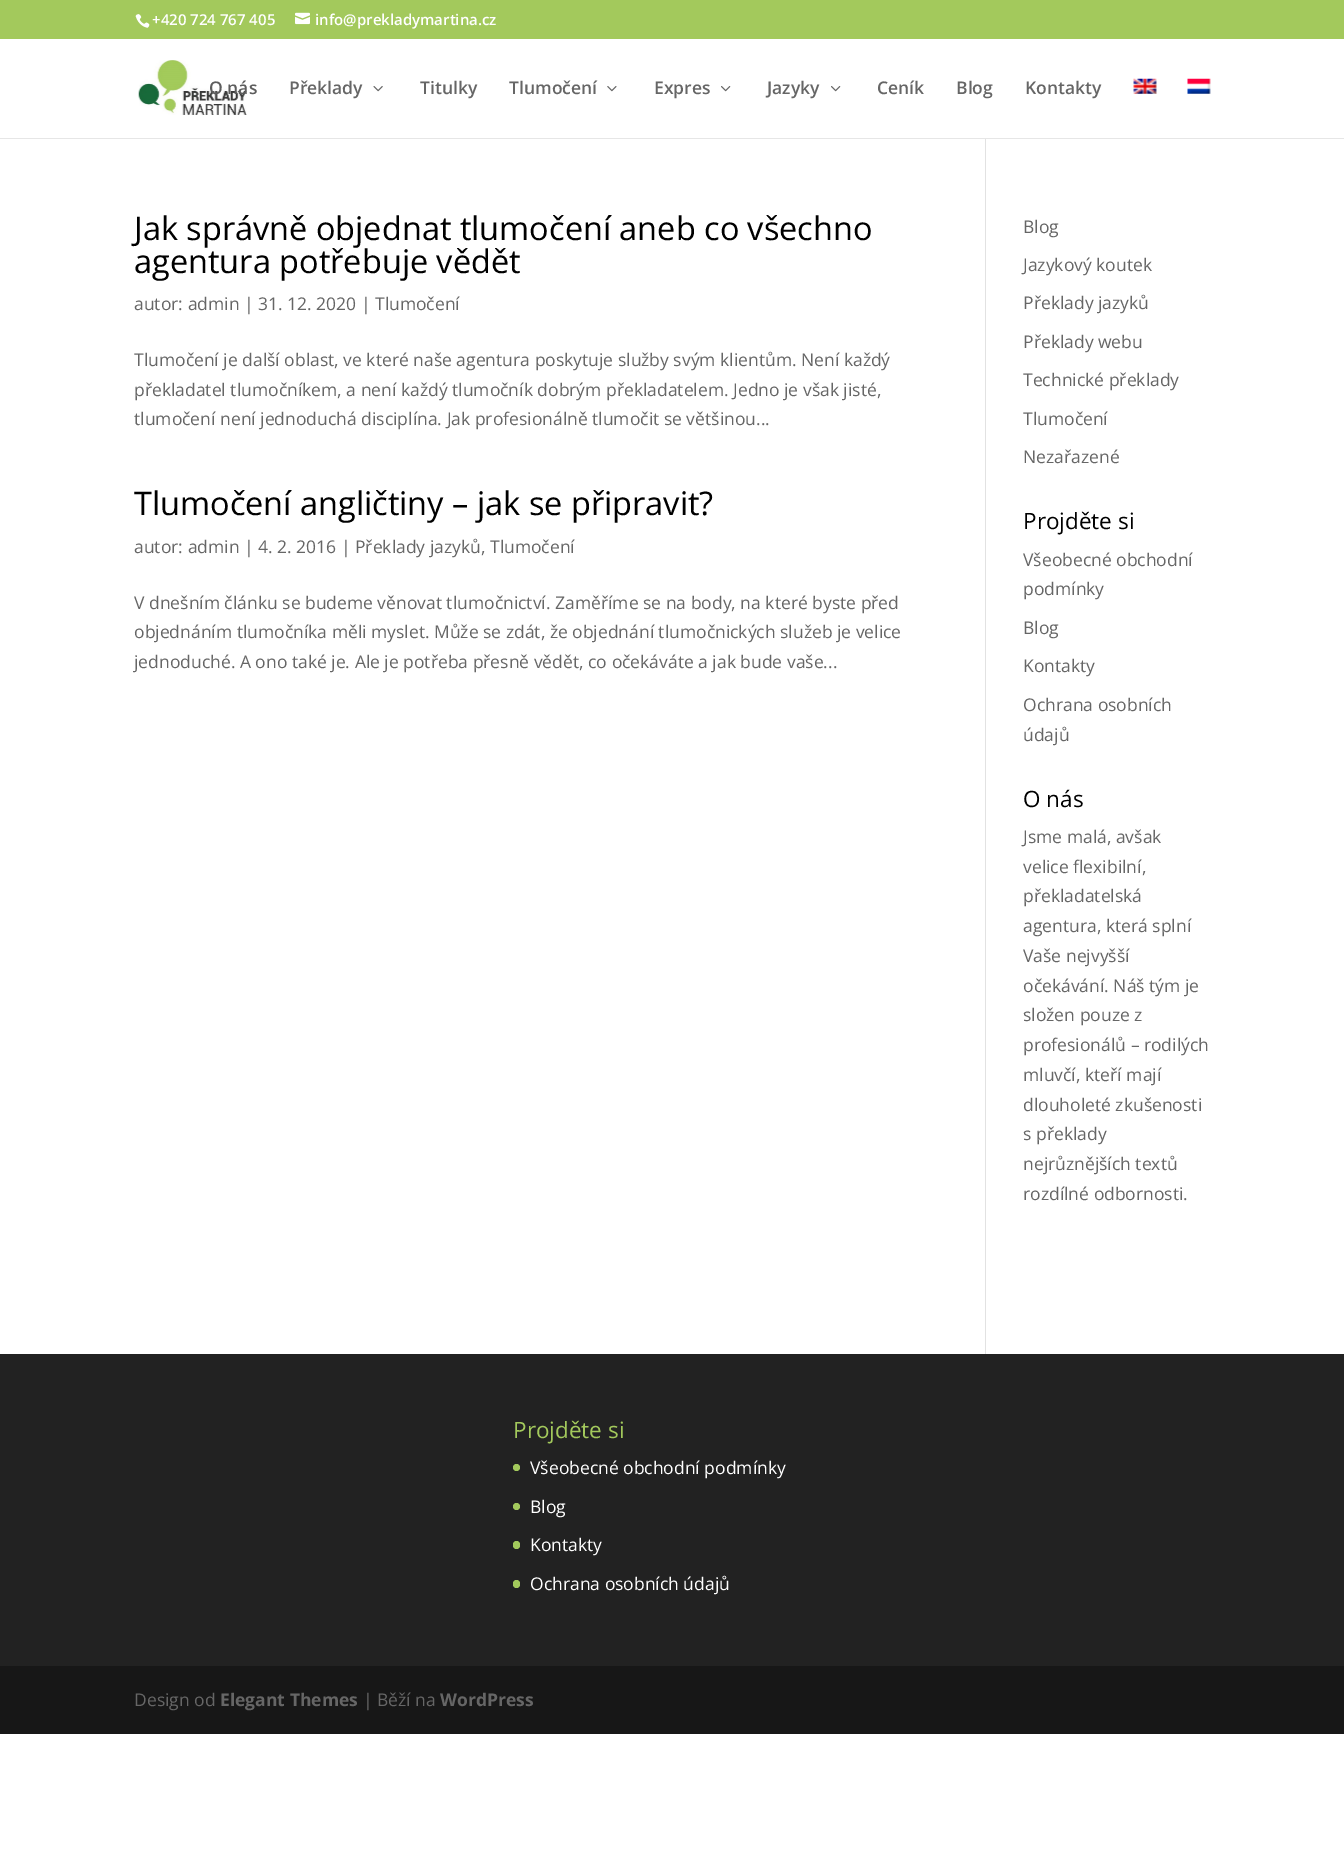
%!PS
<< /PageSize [1344 1850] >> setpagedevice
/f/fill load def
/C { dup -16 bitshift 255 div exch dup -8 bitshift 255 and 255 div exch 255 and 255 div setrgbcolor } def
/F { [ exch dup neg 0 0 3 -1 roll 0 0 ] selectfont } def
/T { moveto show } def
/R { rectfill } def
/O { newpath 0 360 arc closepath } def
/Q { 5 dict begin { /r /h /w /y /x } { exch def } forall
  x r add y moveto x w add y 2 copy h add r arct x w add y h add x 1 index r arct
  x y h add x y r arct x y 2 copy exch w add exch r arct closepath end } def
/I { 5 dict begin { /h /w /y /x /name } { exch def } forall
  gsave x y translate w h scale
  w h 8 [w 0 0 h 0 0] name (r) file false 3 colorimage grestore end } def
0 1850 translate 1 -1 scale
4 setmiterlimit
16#FFFFFF C
0 0 1344 1850 R
16#A3C95C C
0 0 1344 39 R
(1.rgb) 135 14 15 14 I
/OpenSans-SemiBold 15 F
16#FFFFFF C
(+420 724 767 405) 152 25 T
(2.rgb) 295 12 15 13 I
(info@prekladymartina.cz) 315 25 T
16#E6E6E6 C
0 138 1344 1 R
(3.rgb) 138 60 109 55 I
/OpenSans-SemiBold 17.5 F
16#5D5D5D C
(O nás) 209 94 T
16#666666 C
(Překlady) 289 94 T
(4.rgb) 373 86 10 6 I
(Titulky) 420 94 T
(Tlumočení) 509 94 T
(5.rgb) 607 86 10 6 I
(Expres) 654 94 T
(6.rgb) 721 86 10 6 I
(Jazyky) 767 94 T
(6.rgb) 831 86 10 6 I
(Ceník) 877 94 T
(Blog) 956 94 T
(Kontakty) 1025 94 T
(7.rgb) 1133 78 24 16 I
(8.rgb) 1187 78 24 16 I
16#E2E2E2 C
985 139 1 1215 R
/OpenSans-Regular 32.5 F
16#000000 C
(Jak správně objednat tlumočení aneb co všechno) 134 240 T
(agentura potřebuje vědět) 134 273 T
/OpenSans-Regular 17.5 F
16#666666 C
(autor: admin | 31. 12. 2020 | Tlumočení) 134 310 T
(Tlumočení je další oblast, ve které naše agentura poskytuje služby svým klientům. Není každý) 134 366 T
(překladatel tlumočníkem, a není každý tlumočník dobrým překladatelem. Jedno je však jisté,) 134 396 T
(tlumočení není jednoduchá disciplína. Jak profesionálně tlumočit se většinou...) 134 425 T
/OpenSans-Regular 32.5 F
16#000000 C
(Tlumočení angličtiny – jak se připravit?) 134 515 T
/OpenSans-Regular 17.5 F
16#666666 C
(autor: admin | 4. 2. 2016 | Překlady jazyků, Tlumočení) 134 553 T
(V dnešním článku se budeme věnovat tlumočnictví. Zaměříme se na body, na které byste před) 134 609 T
(objednáním tlumočníka měli myslet. Může se zdát, že objednání tlumočnických služeb je velice) 134 638 T
(jednoduché. A ono také je. Ale je potřeba přesně vědět, co očekáváte a jak bude vaše...) 134 668 T
(Blog) 1023 233 T
(Jazykový koutek) 1023 271 T
(Překlady jazyků) 1023 309 T
(Překlady webu) 1023 348 T
(Technické překlady) 1023 386 T
(Tlumočení) 1023 425 T
(Nezařazené) 1023 463 T
/OpenSans-Regular 22.5 F
16#000000 C
(Projděte si) 1023 529 T
/OpenSans-Regular 17.5 F
16#666666 C
(Všeobecné obchodní) 1023 566 T
(podmínky) 1023 595 T
(Blog) 1023 634 T
(Kontakty) 1023 672 T
(Ochrana osobních) 1023 711 T
(údajů) 1023 741 T
/OpenSans-Regular 22.5 F
16#000000 C
(O nás) 1023 807 T
/OpenSans-Regular 17.5 F
16#666666 C
(Jsme malá, avšak) 1023 843 T
(velice flexibilní,) 1023 873 T
(překladatelská) 1023 902 T
(agentura, která splní) 1023 932 T
(Vaše nejvyšší) 1023 962 T
(očekávání. Náš tým je) 1023 992 T
(složen pouze z) 1023 1021 T
(profesionálů – rodilých) 1023 1051 T
(mluvčí, kteří mají) 1023 1081 T
(dlouholeté zkušenosti) 1023 1111 T
(s překlady) 1023 1140 T
(nejrůznějších textů) 1023 1170 T
(rozdílné odbornosti.) 1023 1200 T
16#222222 C
0 1354 1344 312 R
/OpenSans-Regular 22.5 F
16#A3C95C C
(Projděte si) 513 1438 T
516.5 1467.5 3.5 O f
/OpenSans-Regular 17.5 F
16#FFFFFF C
(Všeobecné obchodní podmínky) 530 1474 T
16#A3C95C C
516.5 1506.5 3.5 O f
16#FFFFFF C
(Blog) 530 1513 T
16#A3C95C C
513 1541 7 8 3.5 Q f
16#FFFFFF C
(Kontakty) 530 1551 T
16#A3C95C C
513 1580 7 8 3.5 Q f
16#FFFFFF C
(Ochrana osobních údajů) 530 1590 T
16#171717 C
0 1666 1344 68 R
16#666666 C
(Design od) 134 1706 T
/OpenSans-Bold 17.5 F
(Elegant Themes) 220 1706 T
/OpenSans-Regular 17.5 F
(| Běží na) 363 1706 T
/OpenSans-Bold 17.5 F
(WordPress) 440 1706 T
showpage
